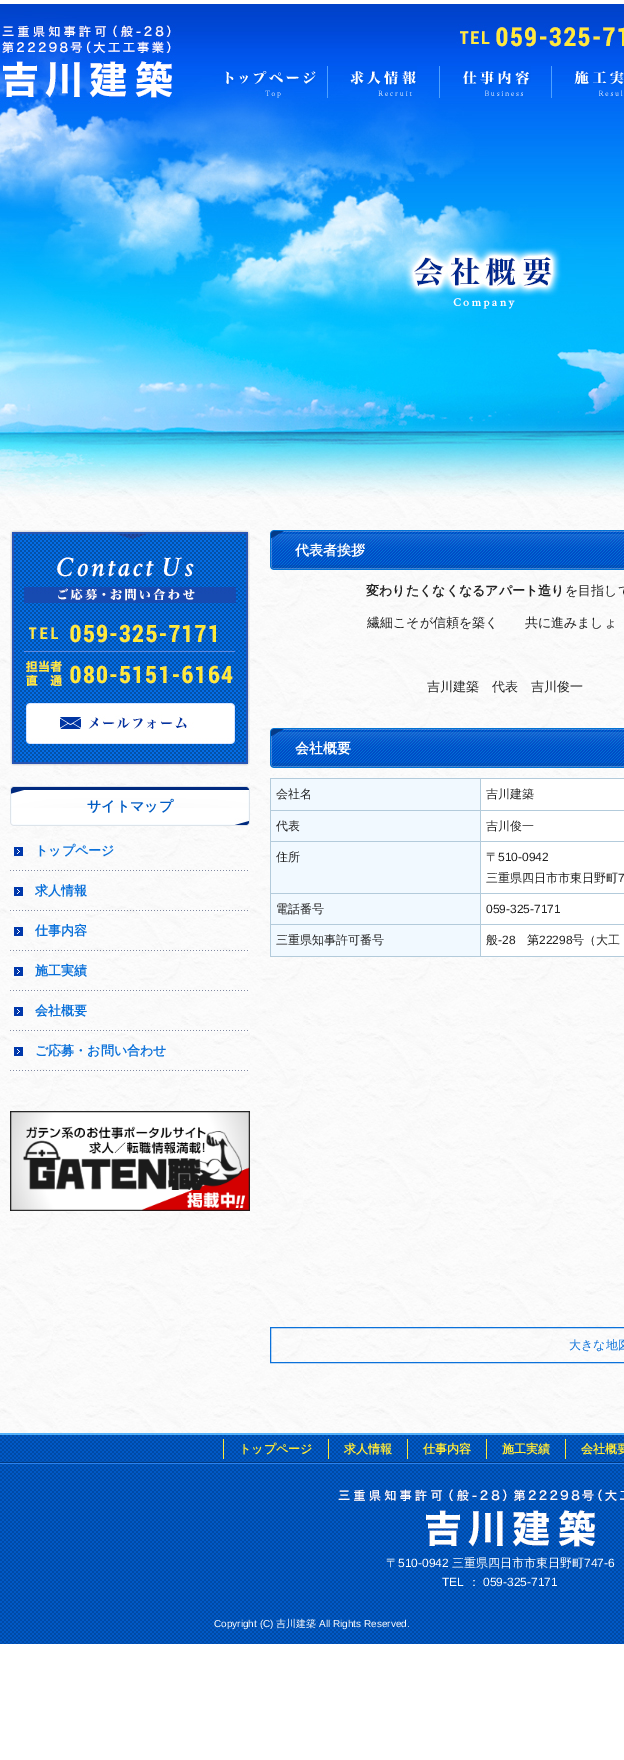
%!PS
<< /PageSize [624 1760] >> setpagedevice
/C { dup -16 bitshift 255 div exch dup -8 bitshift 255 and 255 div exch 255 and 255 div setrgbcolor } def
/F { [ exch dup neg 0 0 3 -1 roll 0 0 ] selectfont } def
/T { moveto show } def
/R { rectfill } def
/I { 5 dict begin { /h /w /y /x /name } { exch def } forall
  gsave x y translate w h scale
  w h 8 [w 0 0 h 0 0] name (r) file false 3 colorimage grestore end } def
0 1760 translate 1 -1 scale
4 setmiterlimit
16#FFFFFF C
0 0 624 1760 R
(1.rgb) 0 518 624 2 I
(2.rgb) 0 1 624 109 I
(3.rgb) 225 71 92 27 I
(4.rgb) 327 66 90 32 I
(5.rgb) 439 66 92 32 I
(6.rgb) 551 66 73 32 I
(7.rgb) 0 110 624 408 I
(8.rgb) 0 520 624 913 I
(9.rgb) 10 530 240 236 I
(10.rgb) 10 786 240 40 I
/WenQuanYiZenHei-Bold 14 F
16#005CC4 C
(サイトマップ) 87 811 T
(11.rgb) 10 847 238 24 I
/WenQuanYiZenHei-Bold 13 F
16#0B71DA C
(トップページ) 35 855 T
(12.rgb) 10 887 238 24 I
(求人情報) 35 895 T
(13.rgb) 10 927 238 24 I
(仕事内容) 35 935 T
(14.rgb) 10 967 238 24 I
(施工実績) 35 975 T
(15.rgb) 10 1007 238 24 I
(会社概要) 35 1015 T
(16.rgb) 10 1047 238 24 I
(ご応募・お問い合わせ) 35 1055 T
(17.rgb) 10 1111 240 100 I
(18.rgb) 270 530 354 40 I
/WenQuanYiZenHei-Bold 14 F
16#FFFFFF C
(代表者挨拶) 295 555 T
/WenQuanYiZenHei-Bold 13 F
16#222222 C
(変わりたくなくなるアパート造り) 366 595 T
/WenQuanYiZenHei-Medium 13 F
(を目指して) 565 595 T
(繊細こそが信頼を築く　　共に進みましょ) 367 627 T
(吉川建築　代表　吉川俊一) 427 691 T
(18.rgb) 270 728 354 40 I
/WenQuanYiZenHei-Bold 14 F
16#FFFFFF C
(会社概要) 295 753 T
16#F1F9FF C
271 779 209 31 R
16#B3CBDB C
480 778 144 1 R
480 810 144 1 R
480 841 144 1 R
480 893 144 1 R
480 924 144 1 R
480 956 144 1 R
480 924 1 33 R
270 924 211 1 R
480 893 1 32 R
270 893 211 1 R
480 841 1 53 R
270 841 211 1 R
480 810 1 32 R
270 810 211 1 R
480 778 1 33 R
270 778 211 1 R
270 956 211 1 R
270 924 1 33 R
270 893 1 32 R
270 841 1 53 R
270 810 1 32 R
270 778 1 33 R
/WenQuanYiZenHei-Medium 12 F
16#222222 C
(会社名) 276 798 T
16#FFFFFF C
481 779 143 31 R
16#222222 C
(吉川建築) 486 798 T
16#F1F9FF C
271 811 209 30 R
16#222222 C
(代表) 276 830 T
16#FFFFFF C
481 811 143 30 R
16#222222 C
(吉川俊一) 486 830 T
16#F1F9FF C
271 842 209 51 R
16#222222 C
(住所) 276 861 T
16#FFFFFF C
481 842 143 51 R
16#222222 C
(〒) 486 861 T
/LiberationSans-Regular 12 F
(510-0942) 498 861 T
/WenQuanYiZenHei-Medium 12 F
(三重県四日市市東日野町) 486 882 T
/LiberationSans-Regular 12 F
(7) 618 882 T
16#F1F9FF C
271 894 209 30 R
/WenQuanYiZenHei-Medium 12 F
16#222222 C
(電話番号) 276 913 T
16#FFFFFF C
481 894 143 30 R
/LiberationSans-Regular 12 F
16#222222 C
(059-325-7171) 486 913 T
16#F1F9FF C
271 925 209 31 R
/WenQuanYiZenHei-Medium 12 F
16#222222 C
(三重県知事許可番号) 276 944 T
16#FFFFFF C
481 925 143 31 R
16#222222 C
(般) 486 944 T
/LiberationSans-Regular 12 F
(-28) 498 944 T
/WenQuanYiZenHei-Medium 12 F
(第) 527 944 T
/LiberationSans-Regular 12 F
(22298) 539 944 T
/WenQuanYiZenHei-Medium 12 F
(号（大工) 572 944 T
16#0B71DA C
270.5 1327.5 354 35 rectstroke
(大きな地図) 569 1349 T
(19.rgb) 0 1433 624 211 I
(20.rgb) 158 1438 466 114 I
16#FFEA38 C
328 1439 1 20 R
223 1439 1 20 R
/WenQuanYiZenHei-Bold 12 F
(トップページ) 239 1453 T
407 1439 1 20 R
(求人情報) 344 1453 T
486 1439 1 20 R
(仕事内容) 423 1453 T
565 1439 1 20 R
(施工実績) 502 1453 T
(会社概要) 581 1453 T
/WenQuanYiZenHei-Medium 12 F
16#FFFFFF C
(〒) 386 1567 T
/LiberationSans-Regular 12 F
(510-0942) 398 1567 T
/WenQuanYiZenHei-Medium 12 F
(三重県四日市市東日野町) 452 1567 T
/LiberationSans-Regular 12 F
(747-6) 584 1567 T
(TEL) 442 1586 T
/WenQuanYiZenHei-Medium 12 F
(：) 468 1586 T
/LiberationSans-Regular 12 F
(059-325-7171) 483 1586 T
/LiberationSans-Regular 10 F
(Copyright \(C\)) 214 1627 T
/WenQuanYiZenHei-Medium 10 F
(吉川建築) 276 1627 T
/LiberationSans-Regular 10 F
(All Rights Reserved.) 319 1627 T
showpage
